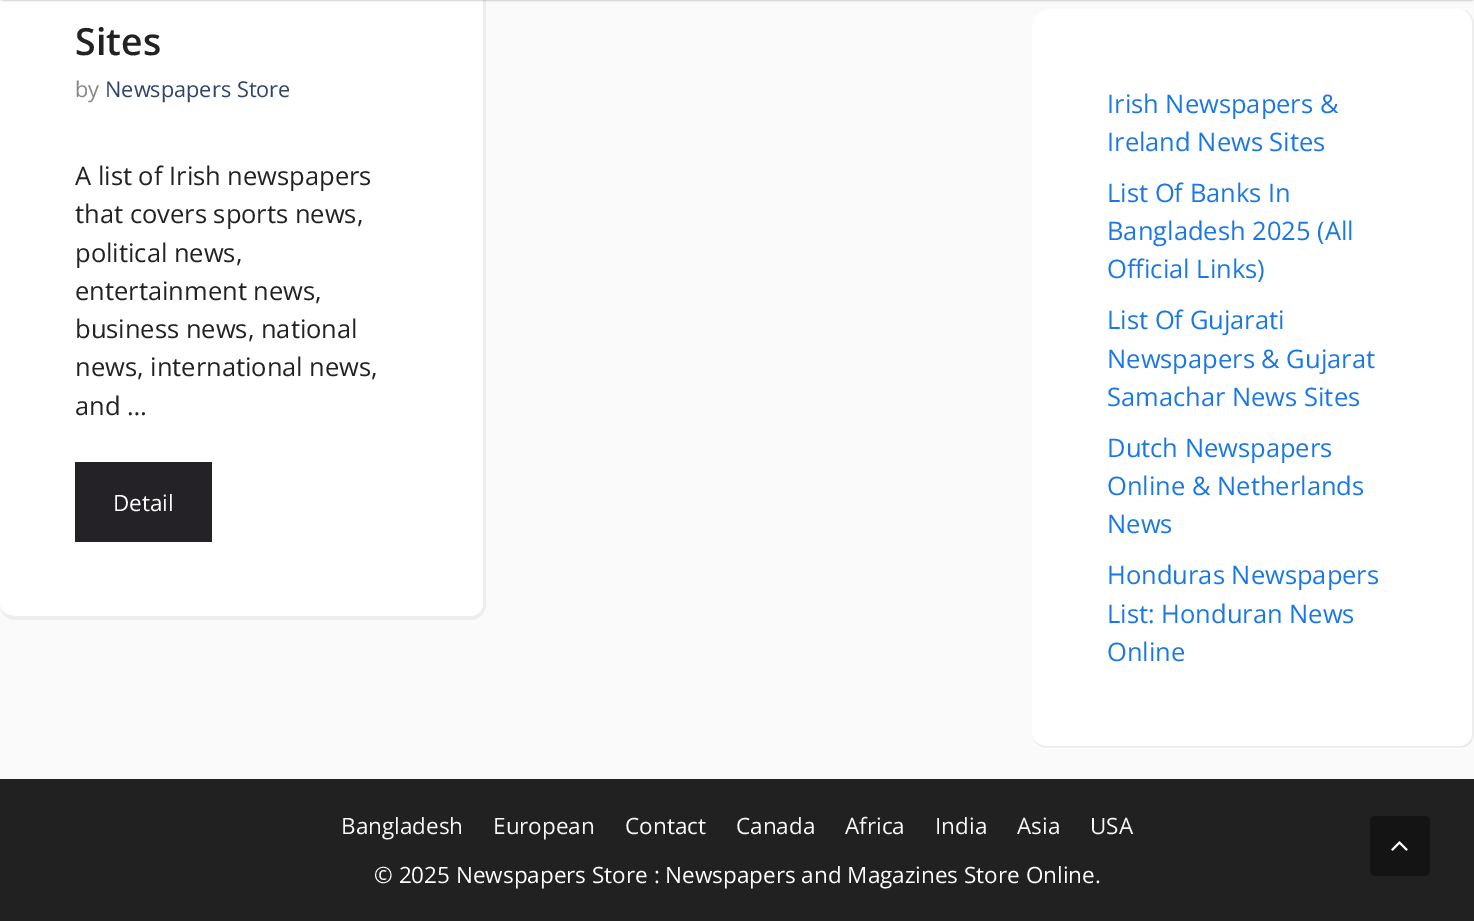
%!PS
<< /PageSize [1474 921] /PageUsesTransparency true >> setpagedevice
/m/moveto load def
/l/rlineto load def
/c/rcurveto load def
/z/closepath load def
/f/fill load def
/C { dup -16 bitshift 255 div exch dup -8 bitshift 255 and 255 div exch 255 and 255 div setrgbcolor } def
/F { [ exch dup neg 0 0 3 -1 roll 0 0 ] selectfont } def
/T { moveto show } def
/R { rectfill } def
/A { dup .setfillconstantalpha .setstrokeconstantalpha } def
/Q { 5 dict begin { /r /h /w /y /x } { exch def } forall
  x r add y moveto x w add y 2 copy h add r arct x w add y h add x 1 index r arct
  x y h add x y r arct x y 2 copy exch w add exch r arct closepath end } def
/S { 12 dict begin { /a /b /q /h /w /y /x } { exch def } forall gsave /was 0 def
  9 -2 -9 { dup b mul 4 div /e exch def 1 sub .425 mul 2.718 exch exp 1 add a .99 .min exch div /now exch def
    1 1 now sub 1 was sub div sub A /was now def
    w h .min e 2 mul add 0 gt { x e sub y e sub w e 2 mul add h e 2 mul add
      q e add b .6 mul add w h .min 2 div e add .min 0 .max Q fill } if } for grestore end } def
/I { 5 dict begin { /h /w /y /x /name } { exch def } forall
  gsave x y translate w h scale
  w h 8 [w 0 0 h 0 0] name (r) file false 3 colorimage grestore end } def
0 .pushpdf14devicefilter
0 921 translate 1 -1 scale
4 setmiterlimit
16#FAFAFA C
0 0 1474 921 R
16#FFFFFF C
0 -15 486 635 15 Q f
0.07 A
16#000000 C
15 -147 m 456 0 l 8 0 15 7 15 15 c 0 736 l 0 9 -7 16 -15 16 c -456 0 l -8 0 -15 -7 -15 -16 c 0 -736 l 0 -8 7 -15 15 -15 c z 15 -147 m 456 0 l 7 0 12 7 12 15 c 0 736 l 0 7 -5 12 -12 12 c -456 0 l -8 0 -15 -5 -15 -12 c 0 -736 l 0 -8 7 -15 15 -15 c z eofill
1 A
3 -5 1469 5 0 1.5 .2 S
0.05 A
0 0 1474 1 R
/OpenSans-SemiBold 37.5 F
1 A
16#222222 C
(Sites) 75 55 T
/OpenSans-Regular 21.75 F
16#878787 C
(by) 75 97 T
16#2F4468 C
(Newspapers Store) 105 97 T
/OpenSans-Regular 25.5 F
16#222222 C
(A list of Irish newspapers) 75 185 T
(that covers sports news,) 75 223 T
(political news,) 75 262 T
(entertainment news,) 75 300 T
(business news, national) 75 338 T
(news, international news,) 75 376 T
(and …) 75 415 T
16#242226 C
75 462 137 80 R
/OpenSans-Regular 22.5 F
16#FFFFFF C
(Detail) 113 511 T
1032 9 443 740 15 Q f
16#EDEDED C
1047 9 m 413 0 l 8 0 14 7 14 15 c 0 710 l 0 8 -6 14 -14 14 c -413 0 l -8 0 -15 -6 -15 -14 c 0 -710 l 0 -8 7 -15 15 -15 c z 1047 9 m 413 0 l 6 0 12 7 12 15 c 0 710 l 0 6 -6 12 -12 12 c -413 0 l -8 0 -15 -6 -15 -12 c 0 -710 l 0 -8 7 -15 15 -15 c z eofill
/OpenSans-Regular 25.5 F
16#1B78E2 C
(Irish Newspapers &) 1107 113 T
(Ireland News Sites) 1107 151 T
(List Of Banks In) 1107 202 T
(Bangladesh 2025 \(All) 1107 240 T
(Official Links\)) 1107 278 T
(List Of Gujarati) 1107 329 T
(Newspapers & Gujarat) 1107 368 T
(Samachar News Sites) 1107 406 T
(Dutch Newspapers) 1107 457 T
(Online & Netherlands) 1107 495 T
(News) 1107 533 T
(Honduras Newspapers) 1107 584 T
(List: Honduran News) 1107 623 T
(Online) 1107 661 T
16#212121 C
0 779 1474 142 R
/OpenSans-Regular 22.5 F
16#F7F8F9 C
(Bangladesh) 341 834 T
(European) 493 834 T
(Contact) 625 834 T
(Canada) 736 834 T
(Africa) 845 834 T
(India) 935 834 T
(Asia) 1017 834 T
(USA) 1090 834 T
16#FFFFFF C
(© 2025 Newspapers Store : Newspapers and Magazines Store Online.) 374 883 T
16#141414 C
1370 816 60 60 5 Q f
(1.rgb) 1391 841 17 10 I
.poppdf14devicefilter showpage
